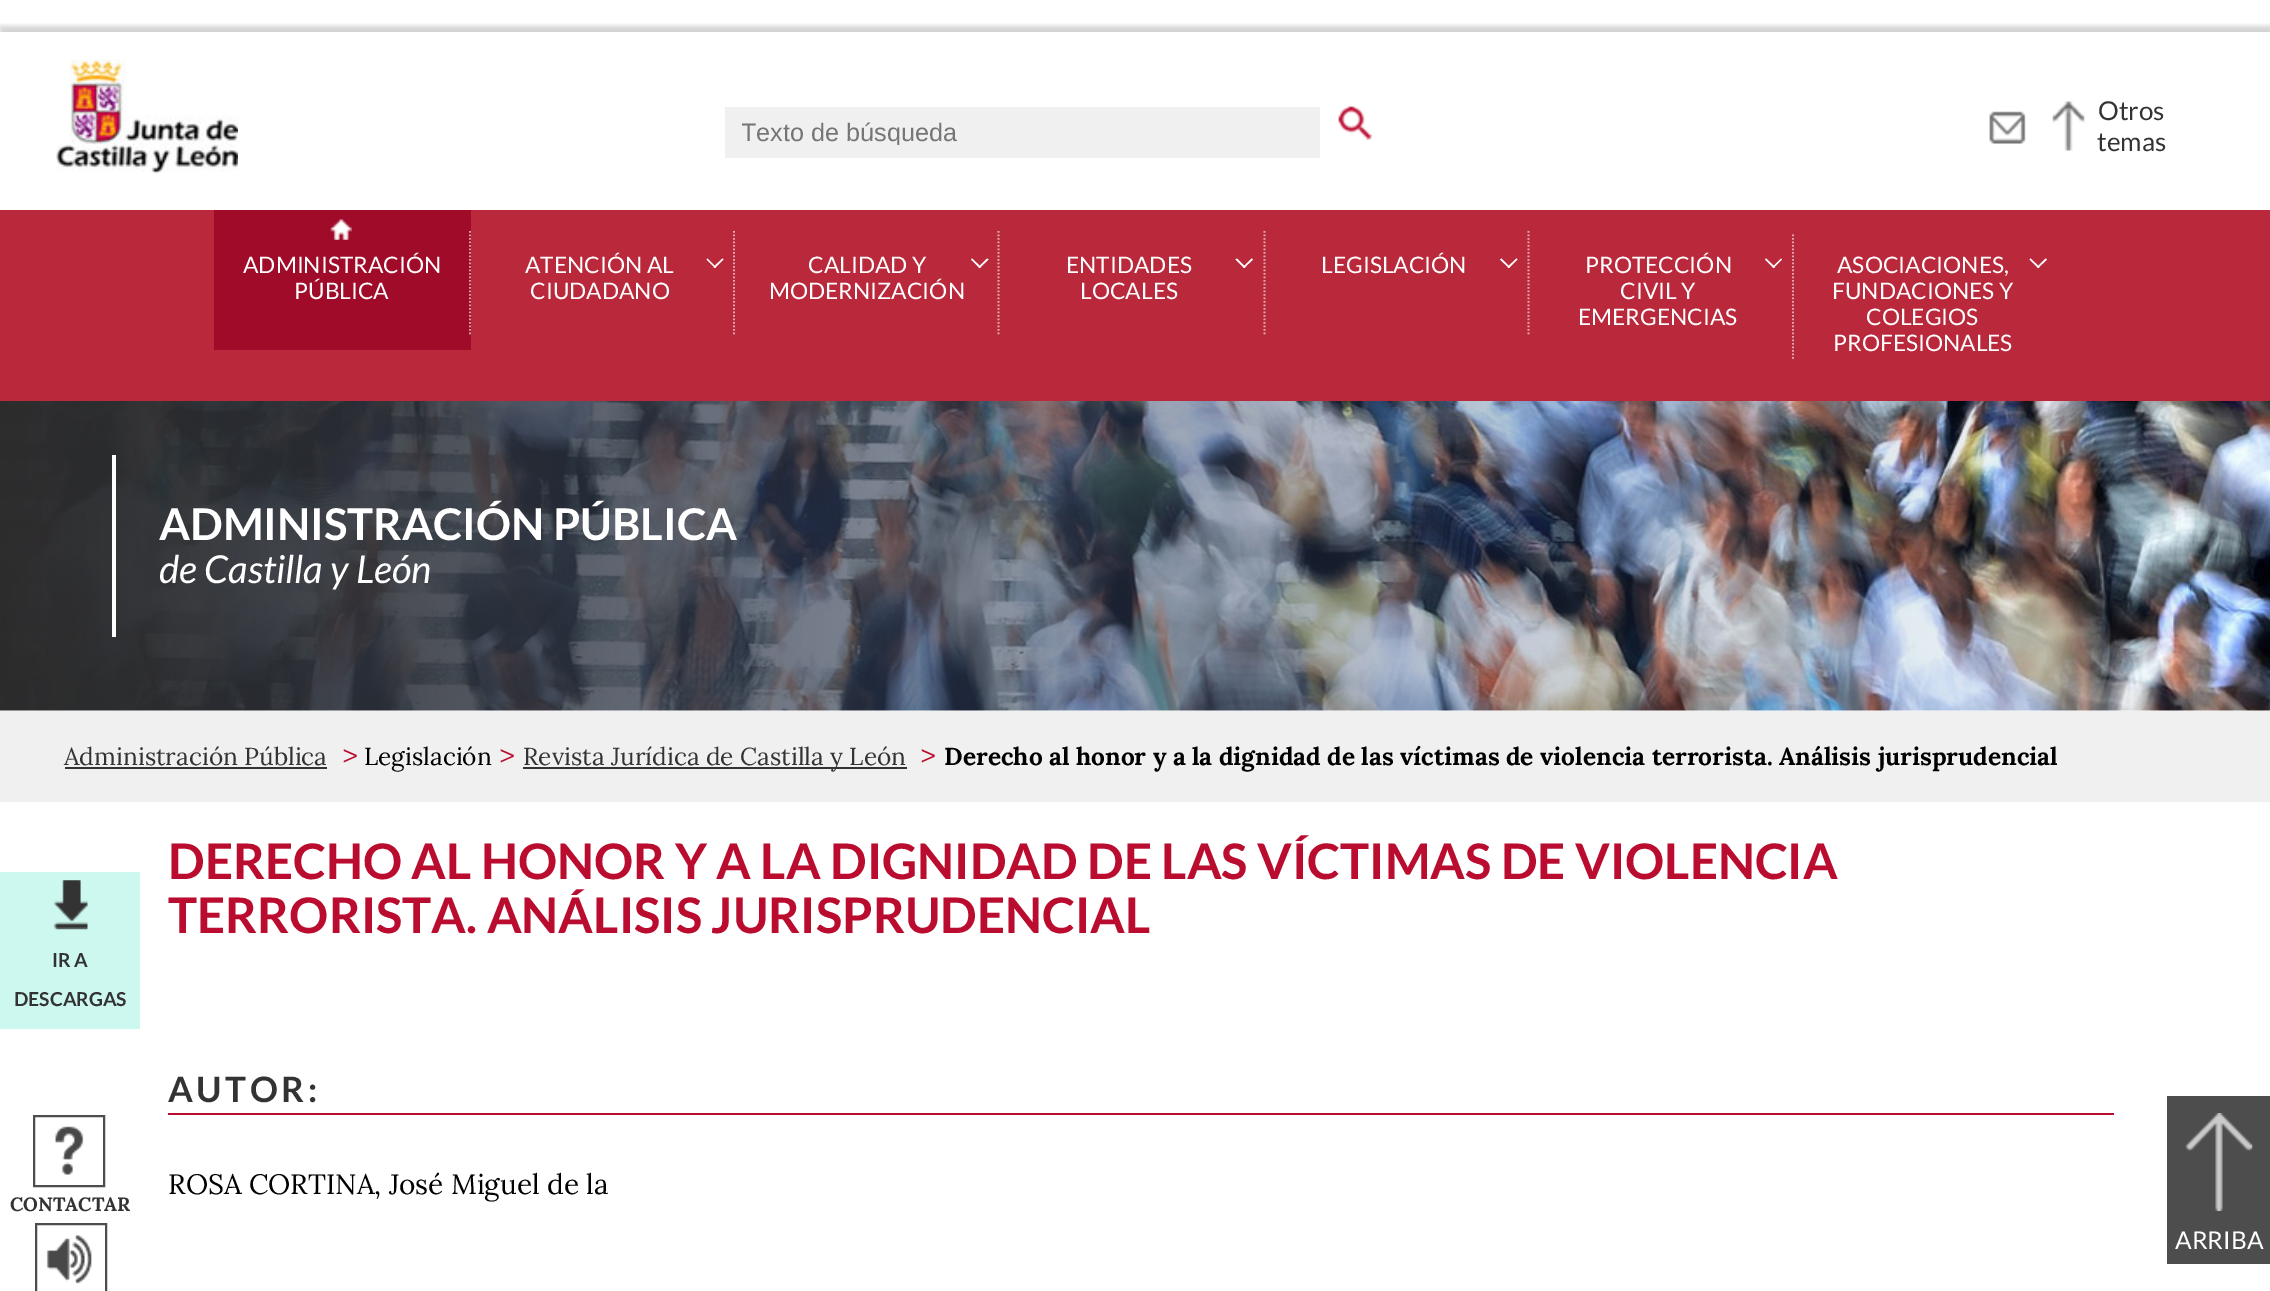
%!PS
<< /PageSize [2270 1291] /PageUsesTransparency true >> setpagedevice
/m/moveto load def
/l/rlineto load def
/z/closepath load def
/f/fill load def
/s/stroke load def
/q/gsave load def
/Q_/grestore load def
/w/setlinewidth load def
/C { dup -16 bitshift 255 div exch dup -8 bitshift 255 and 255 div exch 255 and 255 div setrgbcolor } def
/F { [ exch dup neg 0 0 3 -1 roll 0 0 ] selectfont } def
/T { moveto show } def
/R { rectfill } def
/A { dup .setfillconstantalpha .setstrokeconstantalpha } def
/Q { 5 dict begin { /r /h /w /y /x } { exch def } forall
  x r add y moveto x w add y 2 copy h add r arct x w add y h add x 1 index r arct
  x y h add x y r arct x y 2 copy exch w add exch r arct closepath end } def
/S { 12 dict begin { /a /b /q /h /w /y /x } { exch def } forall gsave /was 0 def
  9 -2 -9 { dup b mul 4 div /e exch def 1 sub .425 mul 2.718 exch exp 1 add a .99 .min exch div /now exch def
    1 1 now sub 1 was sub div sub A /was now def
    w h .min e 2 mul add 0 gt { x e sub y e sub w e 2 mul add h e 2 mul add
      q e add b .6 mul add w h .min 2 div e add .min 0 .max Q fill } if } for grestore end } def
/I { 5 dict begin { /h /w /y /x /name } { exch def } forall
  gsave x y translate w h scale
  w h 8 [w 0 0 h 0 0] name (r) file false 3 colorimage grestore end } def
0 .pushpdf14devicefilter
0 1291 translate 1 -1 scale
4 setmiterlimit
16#FFFFFF C
0 0 2270 1291 R
q
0 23 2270 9 rectclip
16#4B4B4B C
0 26 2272 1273 0 2.5 .25 S
Q_
(1.rgb) 56 59 182 115 I
16#F0F0F0 C
725 107 595 51 R
q
742 117 560 28 rectclip
/LiberationSans-Regular 25.25 F
16#757575 C
(Texto de búsqueda) 741 141 T
Q_
(2.rgb) 1338 106 35 34 I
(3.rgb) 1989 111 37 33 I
(4.rgb) 2052 101 33 50 I
/Lato-Regular 26 F
16#333333 C
(Otros) 2098 120 T
(temas) 2097 151 T
16#BA283B C
0 210 2270 191 R
16#9F0B28 C
214 210 257 140 R
(5.rgb) 330 219 22 21 I
/Lato-Regular 22.75 F
16#FFFFFF C
(ADMINISTRACIÓN) 243 273 T
(PÚBLICA) 294 299 T
16#D99DA9 C
1.8 w
[1.75 1.75] 0 setdash
470 231 m 0 105 l s
16#FFFFFF C
(ATENCIÓN AL) 525 273 T
722.5 258.5 m 1 1 l -8.5 8.5 l -1.5 -1 l z f
707.5 258.5 m 8.5 8.5 l -1 1 l -8.5 -8.5 l z f
(CIUDADANO) 530 299 T
16#E3A9B1 C
734 231 m 0 105 l s
16#FFFFFF C
(CALIDAD Y) 808 273 T
987 258.5 m 1.5 1 l -9 8.5 l -1 -1 l z f
972 258.5 m 9 8.5 l -1.5 1 l -8.5 -8.5 l z f
(MODERNIZACIÓN) 769 299 T
16#E3A9B1 C
998.5 231 m 0 105 l s
16#FFFFFF C
(ENTIDADES) 1066 273 T
1251.5 258.5 m 1.5 1 l -9 8.5 l -1 -1 l z f
1237 258.5 m 8.5 8.5 l -1.5 1 l -8.5 -8.5 l z f
(LOCALES) 1080 299 T
16#E3A9B1 C
1264.5 231 m 0 105 l s
16#FFFFFF C
(LEGISLACIÓN) 1321 273 T
1516.5 258.5 m 1 1 l -8.5 8.5 l -1.5 -1 l z f
1501.5 258.5 m 8.5 8.5 l -1 1 l -9 -8.5 l z f
16#E3A9B1 C
1528.5 231 m 0 105 l s
16#FFFFFF C
(PROTECCIÓN) 1585 273 T
1781 258.5 m 1 1 l -8.5 8.5 l -1 -1 l z f
1766 258.5 m 9 8.5 l -1.5 1 l -8.5 -8.5 l z f
(CIVIL Y) 1620 299 T
(EMERGENCIAS) 1578 325 T
16#E3A9B1 C
1793 234.5 m 0 124.5 l s
16#FFFFFF C
(ASOCIACIONES,) 1837 273 T
2045.5 258.5 m 1.5 1 l -9 8.5 l -1 -1 l z f
2030.5 258.5 m 9 8.5 l -1.5 1 l -8.5 -8.5 l z f
(FUNDACIONES Y) 1832 299 T
(COLEGIOS) 1866 325 T
(PROFESIONALES) 1833 351 T
(6.rgb) 0 401 2270 310 I
112 455 4 182 R
/Lato-Bold 43.75 F
(ADMINISTRACIÓN PÚBLICA) 159 540 T
/Lato-Italic 38.5 F
(de Castilla y León) 159 583 T
16#F0F0F0 C
0 711 2270 91 R
/Lora-Regular 24.5 F
16#333333 C
(Administración Pública) 64 765 T
65 767 262 2 R
/Lora-Regular 29 F
16#BA0C2F C
(>) 342 765 T
/Lora-Regular 24.5 F
16#000000 C
(Legislación) 364 765 T
/Lora-Regular 29 F
16#BA0C2F C
(>) 499 765 T
16#333333 C
523 767 384 2 R
/Lora-Regular 24.5 F
(Revista Jurídica de Castilla y León) 523 765 T
/Lora-Regular 29 F
16#BA0C2F C
(>) 920 765 T
/Lora-Bold 24.5 F
16#000000 C
(Derecho al honor y a la dignidad de las víctimas de violencia terrorista. Análisis jurisprudencial) 944 765 T
/Lato-Bold 49 F
16#BA0C2F C
(DERECHO AL HONOR Y A LA DIGNIDAD DE LAS VÍCTIMAS DE VIOLENCIA) 168 879 T
(TERRORISTA. ANÁLISIS JURISPRUDENCIAL) 168 933 T
16#CDF8F0 C
0 872 140 157 R
(7.rgb) 54 880 34 50 I
/Lato-Bold 19.25 F
16#333333 C
(IR A) 52 967 T
(DESCARGAS) 14 1006 T
16#4D4D4D C
2 w
[] 0 setdash
34 1116 70 70 rectstroke
(8.rgb) 55 1126 29 49 I
/Lora-Bold 19.25 F
16#333333 C
(CONTACTAR) 10 1211 T
16#4D4D4D C
36 1224 70 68 rectstroke
(9.rgb) 46 1235 46 49 I
/Lato-Bold 35 F
16#333333 C
168 1102 m 3.5 0 (AUTOR:) ashow
16#BA0C2F C
168 1113 1946 2 R
/Lora-Regular 28 F
16#000000 C
(ROSA CORTINA, José Miguel de la) 168 1194 T
16#4D4D4D C
2167 1096 103 168 R
(10.rgb) 2185 1113 68 98 I
/Lato-Regular 24.5 F
16#FFFFFF C
(ARRIBA) 2175 1249 T
.poppdf14devicefilter showpage
